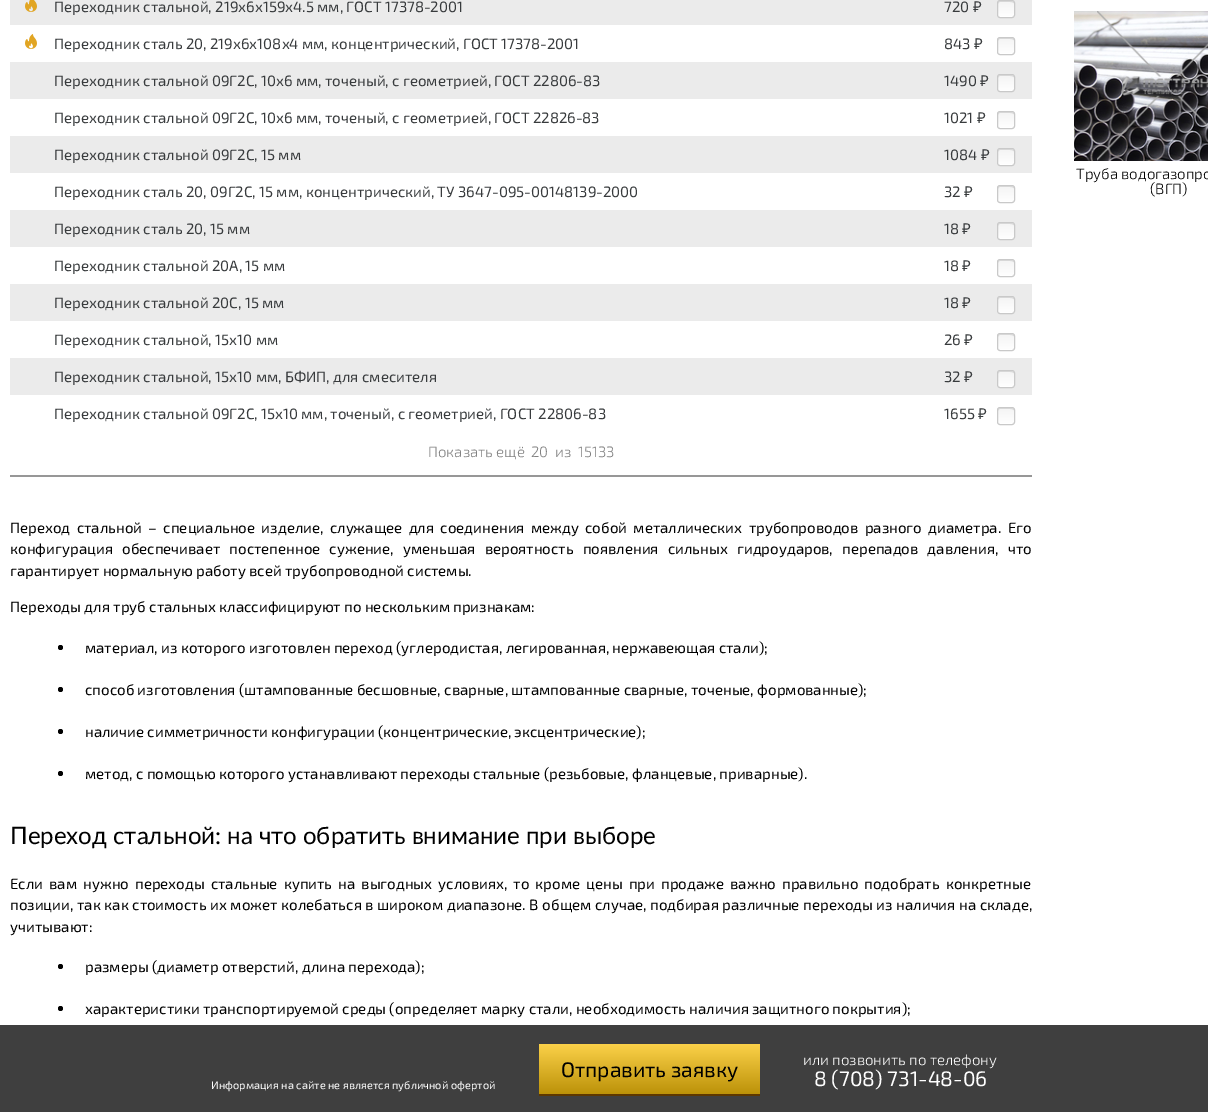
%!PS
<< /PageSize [1208 1112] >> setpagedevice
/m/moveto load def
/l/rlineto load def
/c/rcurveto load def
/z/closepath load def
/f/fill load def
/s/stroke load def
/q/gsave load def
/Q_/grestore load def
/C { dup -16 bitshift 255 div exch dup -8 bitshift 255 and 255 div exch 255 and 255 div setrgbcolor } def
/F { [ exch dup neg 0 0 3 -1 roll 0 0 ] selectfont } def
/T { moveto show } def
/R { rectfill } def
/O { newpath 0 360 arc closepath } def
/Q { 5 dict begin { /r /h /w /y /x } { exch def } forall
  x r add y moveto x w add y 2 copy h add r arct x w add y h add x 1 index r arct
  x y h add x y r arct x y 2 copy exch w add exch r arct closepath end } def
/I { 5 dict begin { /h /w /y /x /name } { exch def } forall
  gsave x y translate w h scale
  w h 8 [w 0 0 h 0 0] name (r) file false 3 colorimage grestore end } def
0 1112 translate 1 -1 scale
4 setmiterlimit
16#FFFFFF C
0 0 1208 1112 R
16#EBEBEB C
10 0 1022 25 R
(1.rgb) 25 0 12 12 I
/Exo2-Regular 15 F
16#383B3D C
(Переходник стальной, 219х6x159х4.5 мм, ГОСТ 17378-2001) 54 12 T
(720) 944 12 T
/NotoSans-Regular 15 F
(₽) 973 12 T
q
997 0 18 18 3 Q clip newpath
q 997 1 m 18 0 l 0 16 l -18 0 l z clip newpath
<< /ShadingType 2 /ColorSpace /DeviceRGB /Coords [1006 1 1006 17] /Extend [true true] /Function << /FunctionType 2 /Domain [0 1] /C0 [.957 .957 .957] /C1 [1 1 1] /N 1 >> >> shfill Q_
Q_
16#DDDDDD C
1000 2 m 2.5 0 13 -1 14 1.5 c 0 -2.5 -2 -2.5 -4 -2.5 c -8 0 l -3 0 -4 0 -4 3 c 0 -1 1 -2 2 -2 c z f
16#C9C9C9 C
997.5 .5 17 17 2.5 Q s
(2.rgb) 25 34 12 15 I
/Exo2-Regular 15 F
16#383B3D C
(Переходник сталь 20, 219х6x108х4 мм, концентрический, ГОСТ 17378-2001) 54 49 T
(843) 944 49 T
/NotoSans-Regular 15 F
(₽) 974 49 T
q
997 37 18 18 3 Q clip newpath
q 997 38 m 18 0 l 0 16 l -18 0 l z clip newpath
<< /ShadingType 2 /ColorSpace /DeviceRGB /Coords [1006 38 1006 54] /Extend [true true] /Function << /FunctionType 2 /Domain [0 1] /C0 [.957 .957 .957] /C1 [1 1 1] /N 1 >> >> shfill Q_
Q_
16#DDDDDD C
1000 39 m 2.5 0 13 -1 14 1.5 c 0 -2.5 -2 -2.5 -4 -2.5 c -8 0 l -3 0 -4 0 -4 3 c 0 -1 1 -2 2 -2 c z f
16#C9C9C9 C
997.5 37.5 17 17 2.5 Q s
16#EBEBEB C
10 62 1022 37 R
/Exo2-Regular 15 F
16#383B3D C
(Переходник стальной 09Г2С, 10x6 мм, точеный, с геометрией, ГОСТ 22806-83) 54 86 T
(1490) 944 86 T
/NotoSans-Regular 15 F
(₽) 980 86 T
q
997 74 18 18 3 Q clip newpath
q 997 75 m 18 0 l 0 16 l -18 0 l z clip newpath
<< /ShadingType 2 /ColorSpace /DeviceRGB /Coords [1006 75 1006 91] /Extend [true true] /Function << /FunctionType 2 /Domain [0 1] /C0 [.957 .957 .957] /C1 [1 1 1] /N 1 >> >> shfill Q_
Q_
16#DDDDDD C
1000 76 m 2.5 0 13 -1 14 1.5 c 0 -2.5 -2 -2.5 -4 -2.5 c -8 0 l -3 0 -4 0 -4 3 c 0 -1 1 -2 2 -2 c z f
16#C9C9C9 C
997.5 74.5 17 17 2.5 Q s
/Exo2-Regular 15 F
16#383B3D C
(Переходник стальной 09Г2С, 10x6 мм, точеный, с геометрией, ГОСТ 22826-83) 54 123 T
(1021) 944 123 T
/NotoSans-Regular 15 F
(₽) 977 123 T
q
997 111 18 18 3 Q clip newpath
q 997 112 m 18 0 l 0 16 l -18 0 l z clip newpath
<< /ShadingType 2 /ColorSpace /DeviceRGB /Coords [1006 112 1006 128] /Extend [true true] /Function << /FunctionType 2 /Domain [0 1] /C0 [.957 .957 .957] /C1 [1 1 1] /N 1 >> >> shfill Q_
Q_
16#DDDDDD C
1000 113 m 2.5 0 13 -1 14 1.5 c 0 -2.5 -2 -2.5 -4 -2.5 c -8 0 l -3 0 -4 0 -4 3 c 0 -1 1 -2 2 -2 c z f
16#C9C9C9 C
997.5 111.5 17 17 2.5 Q s
16#EBEBEB C
10 136 1022 37 R
/Exo2-Regular 15 F
16#383B3D C
(Переходник стальной 09Г2С, 15 мм) 54 160 T
(1084) 944 160 T
/NotoSans-Regular 15 F
(₽) 981 160 T
q
997 148 18 18 3 Q clip newpath
q 997 149 m 18 0 l 0 16 l -18 0 l z clip newpath
<< /ShadingType 2 /ColorSpace /DeviceRGB /Coords [1006 149 1006 165] /Extend [true true] /Function << /FunctionType 2 /Domain [0 1] /C0 [.957 .957 .957] /C1 [1 1 1] /N 1 >> >> shfill Q_
Q_
16#DDDDDD C
1000 150 m 2.5 0 13 -1 14 1.5 c 0 -2.5 -2 -2.5 -4 -2.5 c -8 0 l -3 0 -4 0 -4 3 c 0 -1 1 -2 2 -2 c z f
16#C9C9C9 C
997.5 148.5 17 17 2.5 Q s
/Exo2-Regular 15 F
16#383B3D C
(Переходник сталь 20, 09Г2С, 15 мм, концентрический, ТУ 3647-095-00148139-2000) 54 197 T
(32) 944 197 T
/NotoSans-Regular 15 F
(₽) 964 197 T
q
997 185 18 18 3 Q clip newpath
q 997 186 m 18 0 l 0 16 l -18 0 l z clip newpath
<< /ShadingType 2 /ColorSpace /DeviceRGB /Coords [1006 186 1006 202] /Extend [true true] /Function << /FunctionType 2 /Domain [0 1] /C0 [.957 .957 .957] /C1 [1 1 1] /N 1 >> >> shfill Q_
Q_
16#DDDDDD C
1000 187 m 2.5 0 13 -1 14 1.5 c 0 -2.5 -2 -2.5 -4 -2.5 c -8 0 l -3 0 -4 0 -4 3 c 0 -1 1 -2 2 -2 c z f
16#C9C9C9 C
997.5 185.5 17 17 2.5 Q s
16#EBEBEB C
10 210 1022 37 R
/Exo2-Regular 15 F
16#383B3D C
(Переходник сталь 20, 15 мм) 54 234 T
(18) 944 234 T
/NotoSans-Regular 15 F
(₽) 962 234 T
q
997 222 18 18 3 Q clip newpath
q 997 223 m 18 0 l 0 16 l -18 0 l z clip newpath
<< /ShadingType 2 /ColorSpace /DeviceRGB /Coords [1006 223 1006 239] /Extend [true true] /Function << /FunctionType 2 /Domain [0 1] /C0 [.957 .957 .957] /C1 [1 1 1] /N 1 >> >> shfill Q_
Q_
16#DDDDDD C
1000 224 m 2.5 0 13 -1 14 1.5 c 0 -2.5 -2 -2.5 -4 -2.5 c -8 0 l -3 0 -4 0 -4 3 c 0 -1 1 -2 2 -2 c z f
16#C9C9C9 C
997.5 222.5 17 17 2.5 Q s
/Exo2-Regular 15 F
16#383B3D C
(Переходник стальной 20А, 15 мм) 54 271 T
(18) 944 271 T
/NotoSans-Regular 15 F
(₽) 962 271 T
q
997 259 18 18 3 Q clip newpath
q 997 260 m 18 0 l 0 16 l -18 0 l z clip newpath
<< /ShadingType 2 /ColorSpace /DeviceRGB /Coords [1006 260 1006 276] /Extend [true true] /Function << /FunctionType 2 /Domain [0 1] /C0 [.957 .957 .957] /C1 [1 1 1] /N 1 >> >> shfill Q_
Q_
16#DDDDDD C
1000 261 m 2.5 0 13 -1 14 1.5 c 0 -2.5 -2 -2.5 -4 -2.5 c -8 0 l -3 0 -4 0 -4 3 c 0 -1 1 -2 2 -2 c z f
16#C9C9C9 C
997.5 259.5 17 17 2.5 Q s
16#EBEBEB C
10 284 1022 37 R
/Exo2-Regular 15 F
16#383B3D C
(Переходник стальной 20С, 15 мм) 54 308 T
(18) 944 308 T
/NotoSans-Regular 15 F
(₽) 962 308 T
q
997 296 18 18 3 Q clip newpath
q 997 297 m 18 0 l 0 16 l -18 0 l z clip newpath
<< /ShadingType 2 /ColorSpace /DeviceRGB /Coords [1006 297 1006 313] /Extend [true true] /Function << /FunctionType 2 /Domain [0 1] /C0 [.957 .957 .957] /C1 [1 1 1] /N 1 >> >> shfill Q_
Q_
16#DDDDDD C
1000 298 m 2.5 0 13 -1 14 1.5 c 0 -2.5 -2 -2.5 -4 -2.5 c -8 0 l -3 0 -4 0 -4 3 c 0 -1 1 -2 2 -2 c z f
16#C9C9C9 C
997.5 296.5 17 17 2.5 Q s
/Exo2-Regular 15 F
16#383B3D C
(Переходник стальной, 15x10 мм) 54 345 T
(26) 944 345 T
/NotoSans-Regular 15 F
(₽) 964 345 T
q
997 333 18 18 3 Q clip newpath
q 997 334 m 18 0 l 0 16 l -18 0 l z clip newpath
<< /ShadingType 2 /ColorSpace /DeviceRGB /Coords [1006 334 1006 350] /Extend [true true] /Function << /FunctionType 2 /Domain [0 1] /C0 [.957 .957 .957] /C1 [1 1 1] /N 1 >> >> shfill Q_
Q_
16#DDDDDD C
1000 335 m 2.5 0 13 -1 14 1.5 c 0 -2.5 -2 -2.5 -4 -2.5 c -8 0 l -3 0 -4 0 -4 3 c 0 -1 1 -2 2 -2 c z f
16#C9C9C9 C
997.5 333.5 17 17 2.5 Q s
16#EBEBEB C
10 358 1022 37 R
/Exo2-Regular 15 F
16#383B3D C
(Переходник стальной, 15x10 мм, БФИП, для смесителя) 54 382 T
(32) 944 382 T
/NotoSans-Regular 15 F
(₽) 964 382 T
q
997 370 18 18 3 Q clip newpath
q 997 371 m 18 0 l 0 16 l -18 0 l z clip newpath
<< /ShadingType 2 /ColorSpace /DeviceRGB /Coords [1006 371 1006 387] /Extend [true true] /Function << /FunctionType 2 /Domain [0 1] /C0 [.957 .957 .957] /C1 [1 1 1] /N 1 >> >> shfill Q_
Q_
16#DDDDDD C
1000 372 m 2.5 0 13 -1 14 1.5 c 0 -2.5 -2 -2.5 -4 -2.5 c -8 0 l -3 0 -4 0 -4 3 c 0 -1 1 -2 2 -2 c z f
16#C9C9C9 C
997.5 370.5 17 17 2.5 Q s
/Exo2-Regular 15 F
16#383B3D C
(Переходник стальной 09Г2С, 15x10 мм, точеный, с геометрией, ГОСТ 22806-83) 54 419 T
(1655) 944 419 T
/NotoSans-Regular 15 F
(₽) 978 419 T
q
997 407 18 18 3 Q clip newpath
q 997 408 m 18 0 l 0 16 l -18 0 l z clip newpath
<< /ShadingType 2 /ColorSpace /DeviceRGB /Coords [1006 408 1006 424] /Extend [true true] /Function << /FunctionType 2 /Domain [0 1] /C0 [.957 .957 .957] /C1 [1 1 1] /N 1 >> >> shfill Q_
Q_
16#DDDDDD C
1000 409 m 2.5 0 13 -1 14 1.5 c 0 -2.5 -2 -2.5 -4 -2.5 c -8 0 l -3 0 -4 0 -4 3 c 0 -1 1 -2 2 -2 c z f
16#C9C9C9 C
997.5 407.5 17 17 2.5 Q s
16#979797 C
10 475 1022 2 R
/Exo2-Light 15 F
16#818181 C
(Показать ещё) 428 457 T
(20) 531 457 T
(из) 555 457 T
(15133) 578 457 T
/Exo2-Regular 15 F
16#000000 C
10 533 m 3 0 32 (Переход стальной – специальное изделие, служащее для соединения между собой металлических трубопроводов разного диаметра. Его) widthshow
10 554 m 5.9 0 32 (конфигурация обеспечивает постепенное сужение, уменьшая вероятность появления сильных гидроударов, перепадов давления, что) widthshow
(гарантирует нормальную работу всей трубопроводной системы.) 10 576 T
(Переходы для труб стальных классифицируют по нескольким признакам:) 10 612 T
60.5 647.5 2.5 O f
(материал, из которого изготовлен переход \(углеродистая, легированная, нержавеющая стали\);) 85 653 T
60.5 689.5 2.5 O f
(способ изготовления \(штампованные бесшовные, сварные, штампованные сварные, точеные, формованные\);) 85 695 T
60.5 731.5 2.5 O f
(наличие симметричности конфигурации \(концентрические, эксцентрические\);) 85 737 T
60.5 773.5 2.5 O f
(метод, с помощью которого устанавливают переходы стальные \(резьбовые, фланцевые, приварные\).) 85 779 T
/Lato-Regular 24 F
(Переход стальной: на что обратить внимание при выборе) 10 844 T
/Exo2-Regular 15 F
10 889 m 2.75 0 32 (Если вам нужно переходы стальные купить на выгодных условиях, то кроме цены при продаже важно правильно подобрать конкретные) widthshow
10 910 m .25 0 32 (позиции, так как стоимость их может колебаться в широком диапазоне. В общем случае, подбирая различные переходы из наличия на складе,) widthshow
(учитывают:) 10 932 T
60.5 966.5 2.5 O f
(размеры \(диаметр отверстий, длина перехода\);) 85 972 T
60.5 1008.5 2.5 O f
(характеристики транспортируемой среды \(определяет марку стали, необходимость наличия защитного покрытия\);) 85 1014 T
(3.rgb) 1074 11 134 150 I
/Exo2-Light 15 F
(Труба водогазопро) 1076 179 T
(\(ВГП\)) 1150 194 T
16#3F3F3F C
0 1025 1208 87 R
q 539 1044 m 221 0 l 0 50 l -221 0 l z clip newpath
<< /ShadingType 2 /ColorSpace /DeviceRGB /Coords [650 1044 650 1094] /Extend [true true] /Function << /FunctionType 2 /Domain [0 1] /C0 [.984 .82 .286] /C1 [.737 .573 .035] /N 1 >> >> shfill Q_
16#5D3700 C
539 1094 221 2 R
/Exo2-Regular 21 F
16#000000 C
(Отправить заявку) 561 1077 T
/Exo2-Light 15 F
16#FFFFFF C
(или позвонить по телефону) 803 1065 T
/Exo2-Regular 21 F
(8 \(708\) 731-48-06) 814 1086 T
/Exo2-Regular 11 F
(Информация на сайте не является публичной офертой) 211 1089 T
showpage
